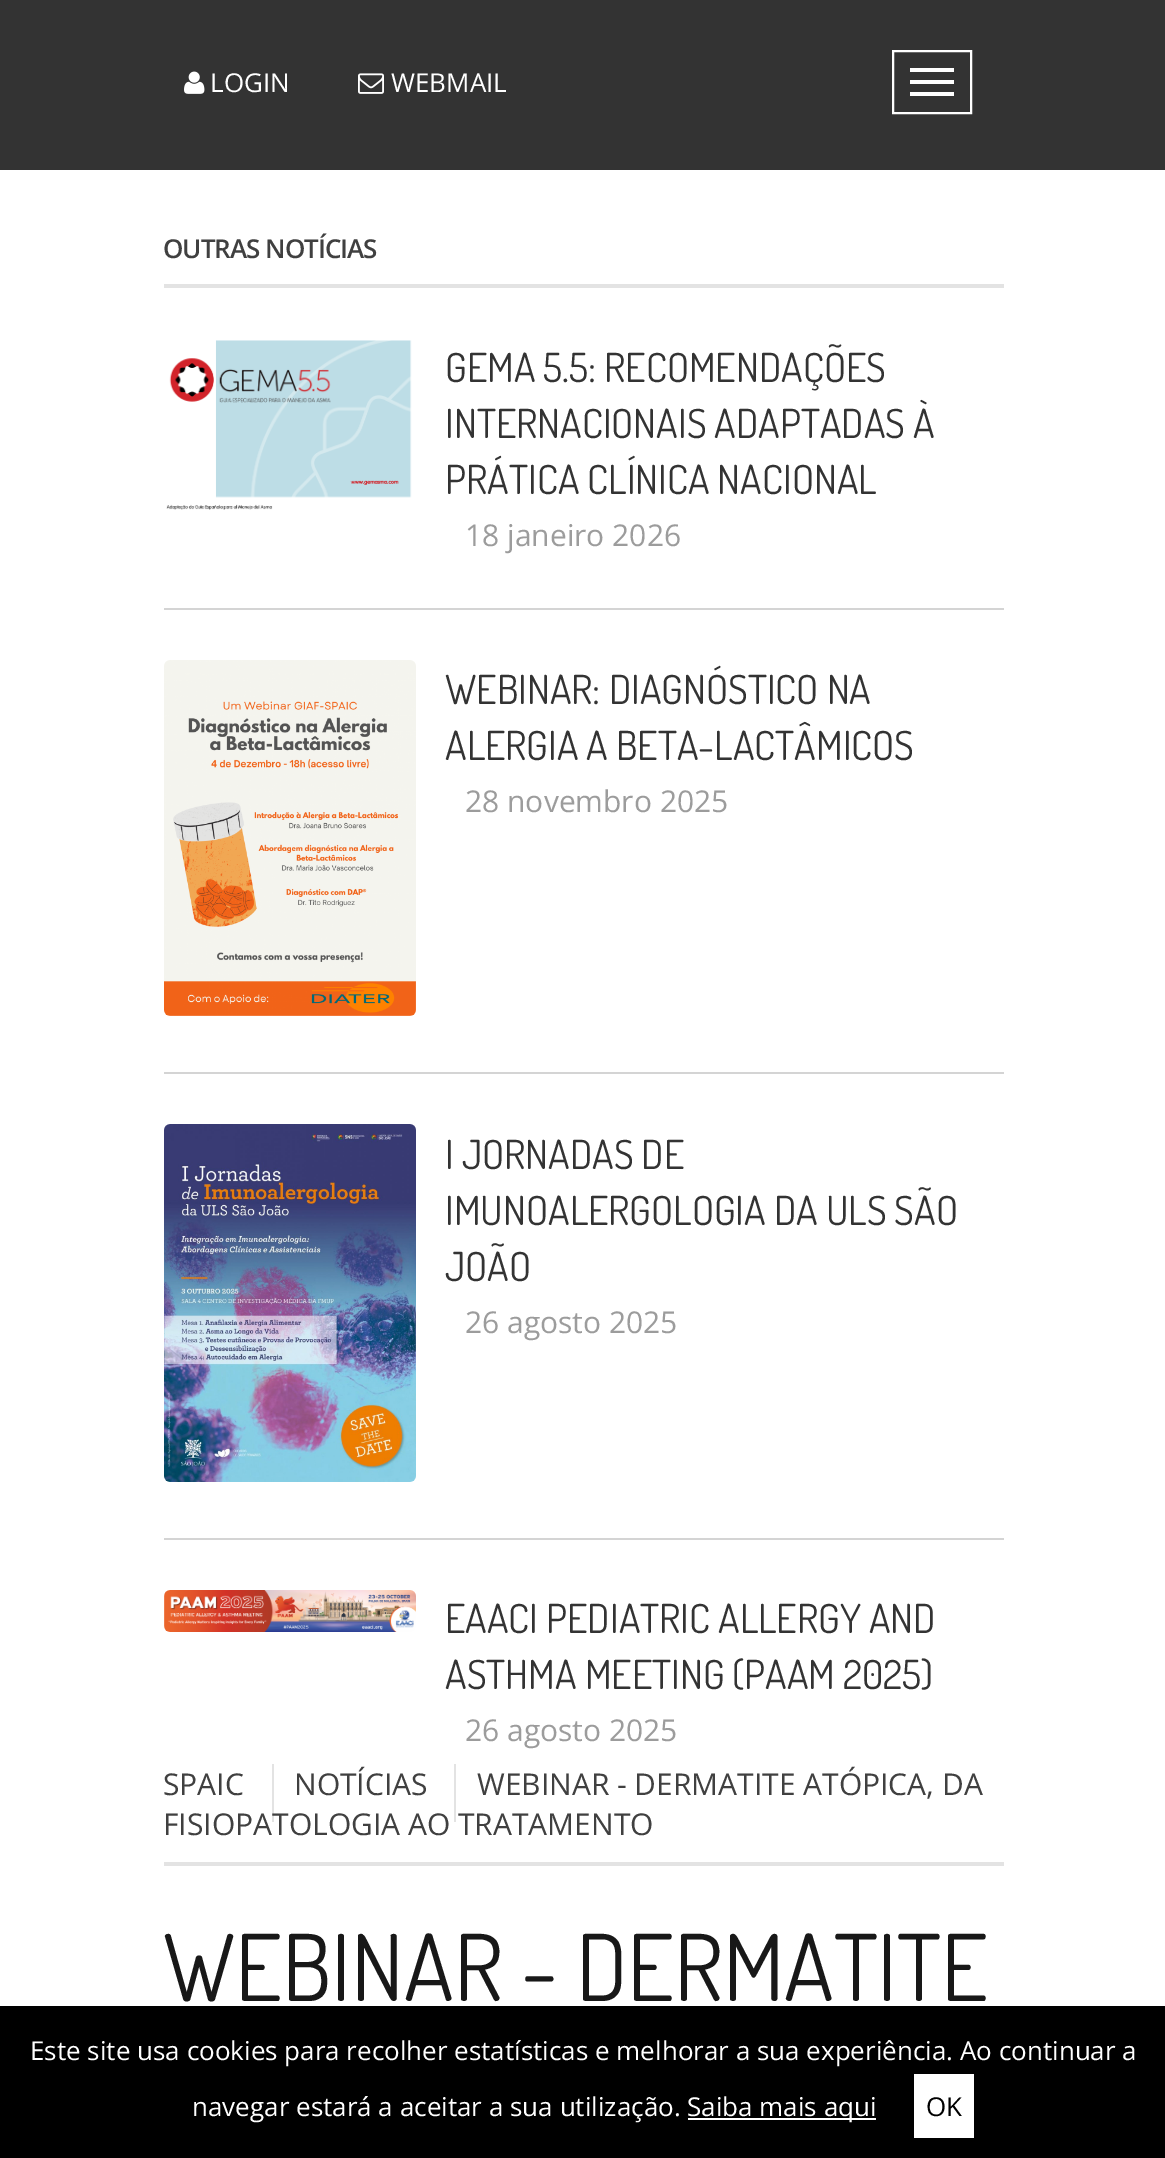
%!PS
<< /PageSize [1165 2158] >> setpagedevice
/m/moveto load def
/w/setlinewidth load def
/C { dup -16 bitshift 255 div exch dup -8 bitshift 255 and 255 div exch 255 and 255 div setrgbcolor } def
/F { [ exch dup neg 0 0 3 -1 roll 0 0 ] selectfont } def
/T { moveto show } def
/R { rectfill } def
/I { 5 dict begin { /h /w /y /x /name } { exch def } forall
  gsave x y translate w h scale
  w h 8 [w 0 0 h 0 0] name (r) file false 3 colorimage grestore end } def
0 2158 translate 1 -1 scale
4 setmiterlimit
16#FFFFFF C
0 0 1165 2158 R
16#333333 C
0 0 1165 170 R
(1.rgb) 184 71 21 23 I
/OpenSans-Regular 26 F
16#FFFFFF C
(LOGIN) 210 92 T
(2.rgb) 358 73 26 21 I
(WEBMAIL) 391 92 T
2 w
893 51 78 62 rectstroke
910 68 44 4 R
910 80 44 4 R
910 92 44 4 R
16#E3E3E3 C
164 284 840 4 R
/OpenSans-SemiBold 26 F
16#404040 C
163 258 m -1 0 (OUTRAS NOTÍCIAS) ashow
16#D4D4D4 C
164 608 840 2 R
(3.rgb) 166 340 246 170 I
/Dosis-Regular 40 F
16#333333 C
(GEMA 5.5: RECOMENDAÇÕES) 445 382 T
(INTERNACIONAIS ADAPTADAS À) 445 438 T
(PRÁTICA CLÍNICA NACIONAL) 445 494 T
/OpenSans-Regular 30 F
16#9C9C9C C
(18 janeiro 2026) 465 546 T
16#D4D4D4 C
164 1072 840 2 R
(4.rgb) 164 660 252 356 I
/Dosis-Regular 40 F
16#333333 C
(WEBINAR: DIAGNÓSTICO NA) 445 704 T
(ALERGIA A BETA-LACTÂMICOS) 445 760 T
/OpenSans-Regular 30 F
16#9C9C9C C
(28 novembro 2025) 465 812 T
16#D4D4D4 C
164 1538 840 2 R
(5.rgb) 164 1124 252 358 I
/Dosis-Regular 40 F
16#333333 C
(I JORNADAS DE) 445 1169 T
(IMUNOALERGOLOGIA DA ULS SÃO) 445 1225 T
(JOÃO) 445 1281 T
/OpenSans-Regular 30 F
16#9C9C9C C
(26 agosto 2025) 465 1333 T
(6.rgb) 164 1590 252 42 I
/Dosis-Regular 40 F
16#333333 C
(EAACI PEDIATRIC ALLERGY AND) 445 1633 T
(ASTHMA MEETING \(PAAM 2025\)) 445 1689 T
/OpenSans-Regular 30 F
16#9C9C9C C
(26 agosto 2025) 465 1741 T
16#E3E3E3 C
164 1862 840 4 R
16#404040 C
(SPAIC) 163 1795 T
(NOTÍCIAS) 294 1795 T
16#E3E3E3 C
272 1764 2 58 R
16#404040 C
(WEBINAR - DERMATITE ATÓPICA, DA) 477 1795 T
16#E3E3E3 C
454 1764 2 58 R
16#404040 C
(FISIOPATOLOGIA AO TRATAMENTO) 163 1835 T
/Dosis-Regular 92 F
16#181818 C
(WEBINAR - DERMATITE) 163 2001 T
16#000000 C
0 2006 1165 152 R
/OpenSans-Regular 26 F
16#FFFFFF C
(Este site usa cookies para recolher estatísticas e melhorar a sua experiência. Ao continuar a) 30 2060 T
(navegar estará a aceitar a sua utilização.) 192 2116 T
688 2118 188 2 R
(Saiba mais aqui) 687 2116 T
914 2074 60 64 R
16#000000 C
(OK) 926 2116 T
showpage
